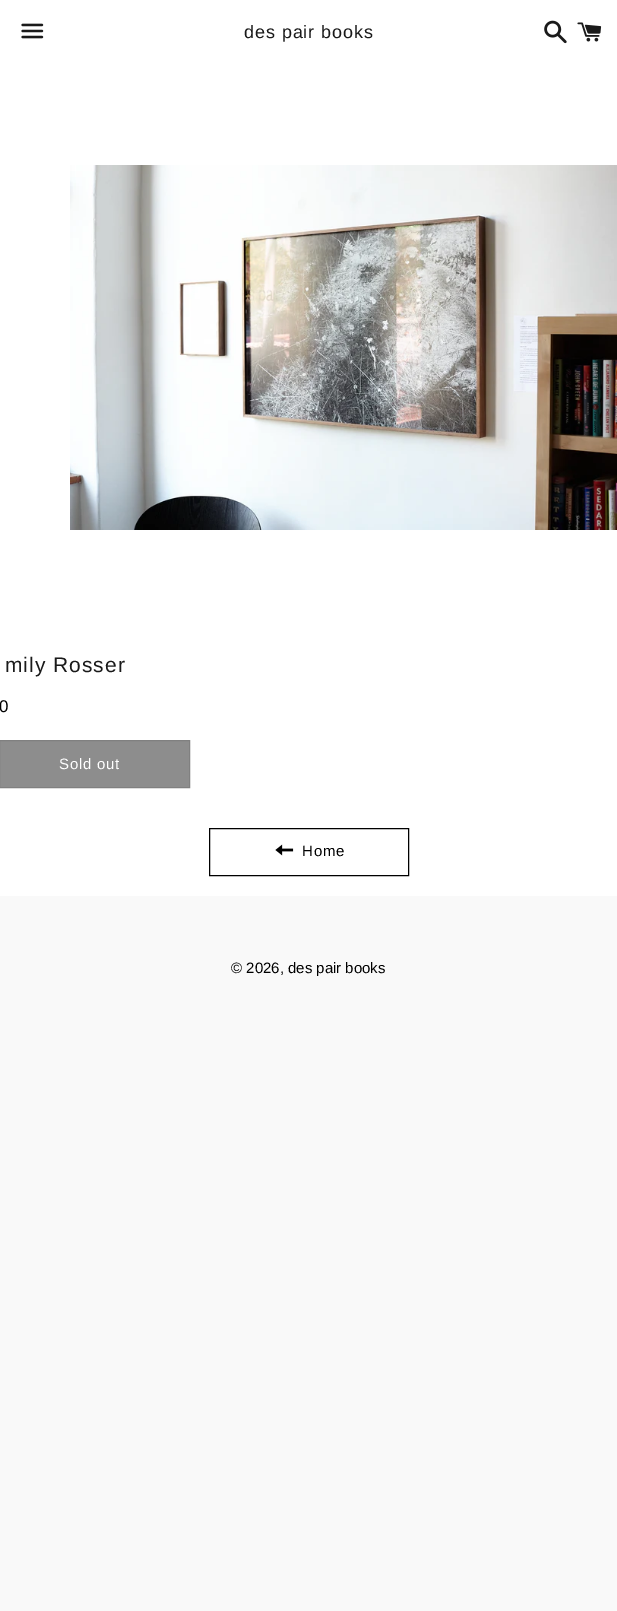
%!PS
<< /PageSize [617 1611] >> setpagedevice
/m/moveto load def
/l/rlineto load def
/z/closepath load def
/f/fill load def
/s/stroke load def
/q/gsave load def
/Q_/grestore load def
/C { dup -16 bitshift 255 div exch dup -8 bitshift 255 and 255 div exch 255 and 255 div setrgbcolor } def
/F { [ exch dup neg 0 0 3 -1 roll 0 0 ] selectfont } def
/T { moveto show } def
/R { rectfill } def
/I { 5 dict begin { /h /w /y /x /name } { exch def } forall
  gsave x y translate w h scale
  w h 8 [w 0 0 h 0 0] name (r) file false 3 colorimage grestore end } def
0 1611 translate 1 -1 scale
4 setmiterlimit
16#F9F9F9 C
0 0 617 1611 R
16#FFFFFF C
0 0 617 896 R
(1.rgb) 21 23 23 16 I
/LiberationSans-Regular 18 F
16#1A1A1A C
244 38 m .9 0 (des pair books) ashow
(2.rgb) 544 20 23 24 I
(3.rgb) 577 22 25 20 I
(4.rgb) 70 165 547 365 I
/LiberationSans-Regular 21 F
5 672 m 1 0 (mily Rosser) ashow
/LiberationSans-Regular 17 F
16#000000 C
(0) -1 712 T
16#8D8D8D C
-.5 740.5 m 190 0 l 0 47 l -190 0 l z q f Q_
16#808080 C
s
/LiberationSans-Regular 15 F
16#FFFFFF C
59 769 m .75 0 (Sold out) ashow
16#000000 C
209.5 828.5 199 47 rectstroke
(5.rgb) 275 844 19 12 I
302 856 m .75 0 (Home) ashow
(© 2026, des pair books) 231 973 T
showpage
